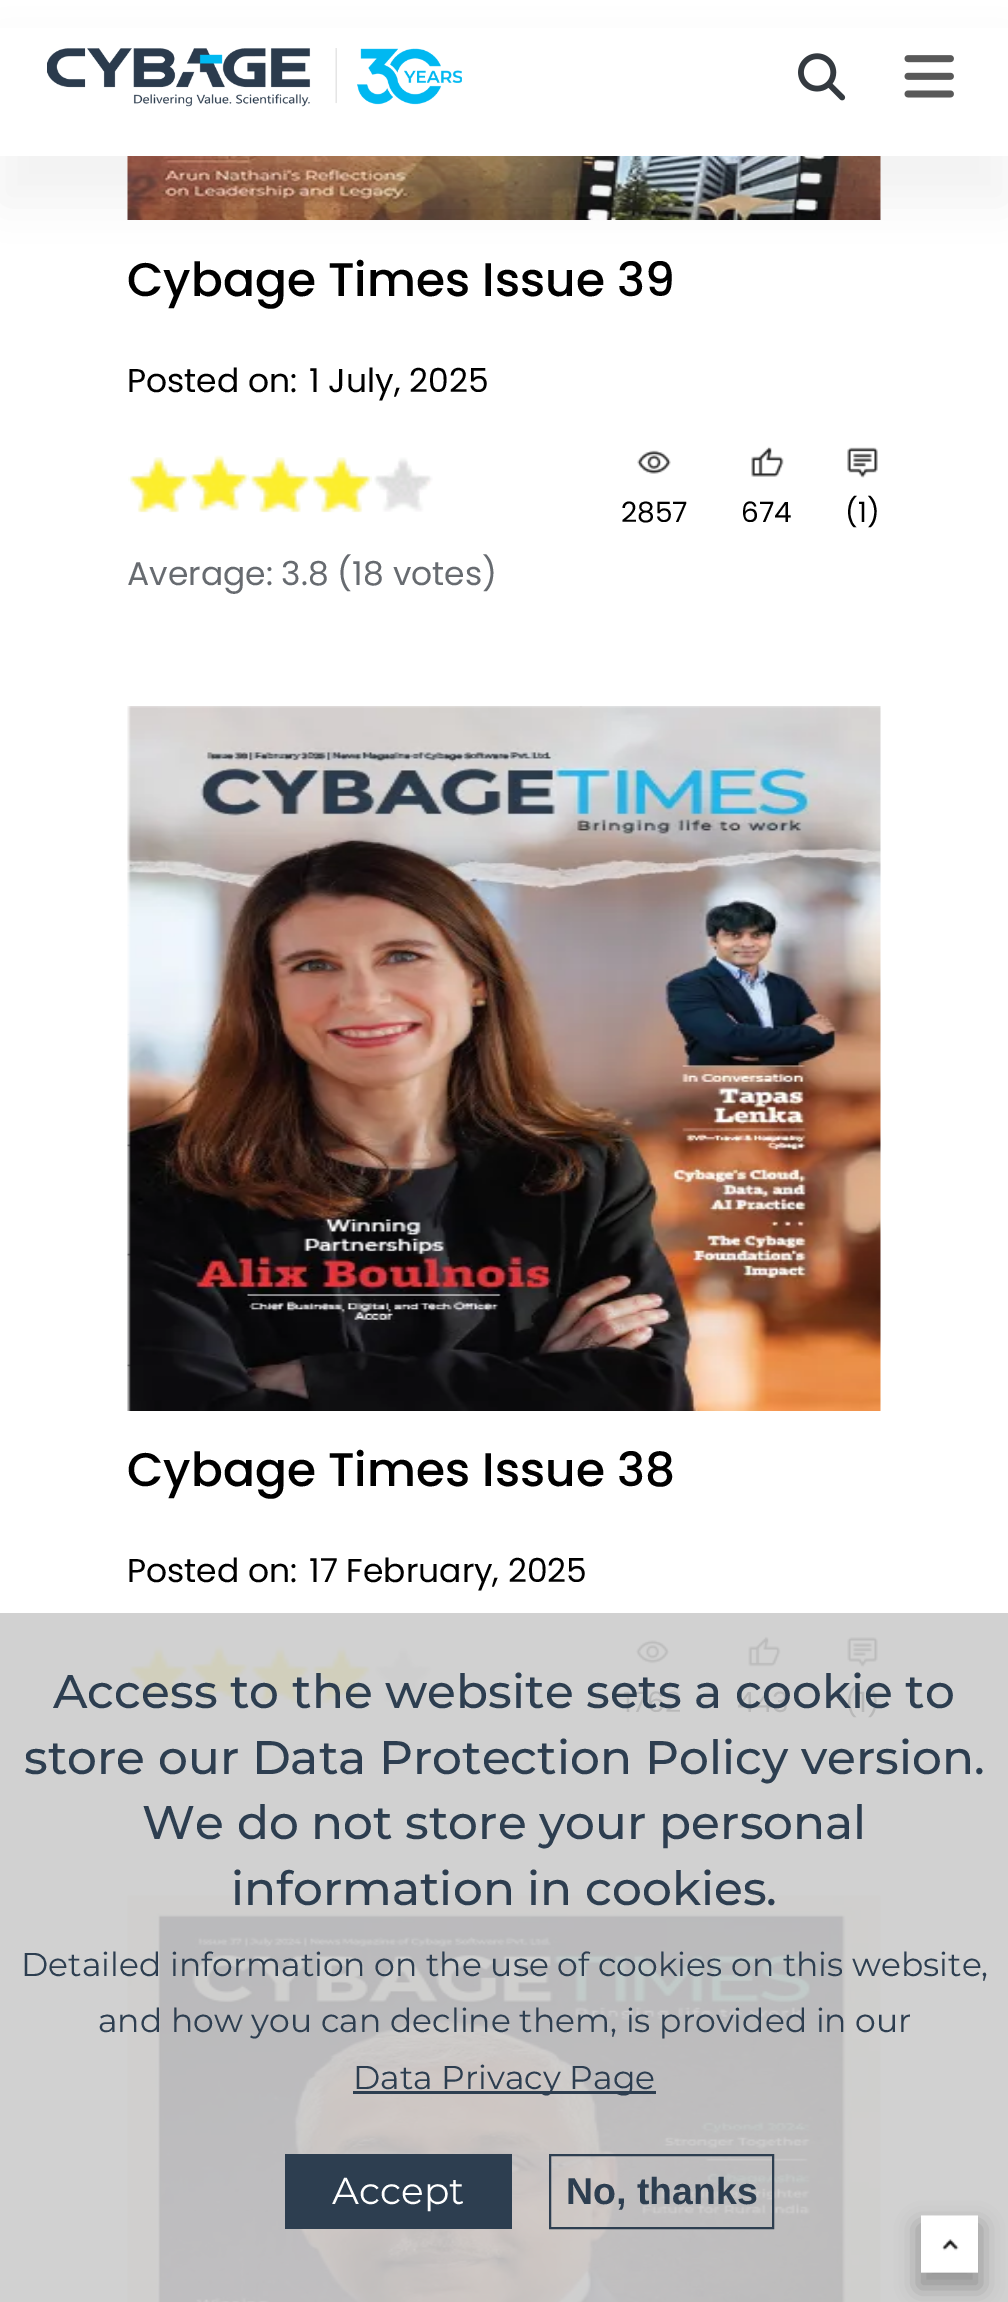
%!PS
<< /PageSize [1008 2302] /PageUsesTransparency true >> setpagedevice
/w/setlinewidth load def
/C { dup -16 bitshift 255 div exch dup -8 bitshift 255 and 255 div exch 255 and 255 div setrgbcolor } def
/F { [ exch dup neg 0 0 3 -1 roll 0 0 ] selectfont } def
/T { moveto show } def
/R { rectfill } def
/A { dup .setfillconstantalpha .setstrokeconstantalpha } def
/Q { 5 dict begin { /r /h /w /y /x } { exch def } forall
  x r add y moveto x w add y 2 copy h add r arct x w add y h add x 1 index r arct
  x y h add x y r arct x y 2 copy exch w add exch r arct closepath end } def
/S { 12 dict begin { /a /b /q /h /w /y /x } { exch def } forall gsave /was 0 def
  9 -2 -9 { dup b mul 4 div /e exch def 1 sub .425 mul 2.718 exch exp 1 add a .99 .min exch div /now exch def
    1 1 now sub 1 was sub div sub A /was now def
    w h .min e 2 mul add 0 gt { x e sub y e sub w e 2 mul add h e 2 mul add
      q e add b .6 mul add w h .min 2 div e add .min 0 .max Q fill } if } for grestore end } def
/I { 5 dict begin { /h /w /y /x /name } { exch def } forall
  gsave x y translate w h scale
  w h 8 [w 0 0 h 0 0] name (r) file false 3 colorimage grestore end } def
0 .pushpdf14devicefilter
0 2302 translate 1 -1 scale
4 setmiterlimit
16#FFFFFF C
0 0 1008 2302 R
16#D1D1D1 C
0 1613 1008 689 R
(4.rgb) 127 156 754 64 I
16#B4B4B4 C
0 47 1008 156 0 23.5 .16 S
16#FFFFFF C
0 28 1008 128 R
(1.rgb) 47 48 415 59 I
(2.rgb) 798 53 48 48 I
(3.rgb) 904 55 50 43 I
/Poppins-Medium 47.1 F
16#000000 C
(Cybage Times Issue 39) 127 296 T
/Poppins-Regular 33 F
(Posted on:) 127 392 T
(1 July, 2025) 309 392 T
(5.rgb) 637 450 34 24 I
/Poppins-Regular 28 F
(2857) 621 522 T
(6.rgb) 751 446 33 31 I
(674) 741 522 T
(7.rgb) 847 447 31 31 I
(\(1\)) 845 522 T
(8.rgb) 130 457 59 55 I
(9.rgb) 128 457 61 56 I
(10.rgb) 191 457 58 54 I
(11.rgb) 189 455 60 56 I
(12.rgb) 251 457 59 55 I
(13.rgb) 249 457 62 56 I
(8.rgb) 313 457 59 55 I
(9.rgb) 311 457 61 56 I
(12.rgb) 374 457 59 55 I
(14.rgb) 376 461 54 39 I
/Poppins-Regular 33 F
16#676B70 C
(Average: 3.8 \(18 votes\)) 127 585 T
(15.rgb) 127 706 754 705 I
/Poppins-Medium 47.1 F
16#000000 C
(Cybage Times Issue 38) 127 1486 T
/Poppins-Regular 33 F
(Posted on:) 127 1582 T
(17 February, 2025) 309 1582 T
(16.rgb) 130 1647 59 56 I
(17.rgb) 128 1646 61 58 I
(18.rgb) 191 1647 58 55 I
(19.rgb) 189 1645 60 56 I
(20.rgb) 251 1647 59 56 I
(21.rgb) 249 1646 61 58 I
(16.rgb) 313 1647 59 56 I
(17.rgb) 311 1646 61 58 I
(20.rgb) 374 1647 59 56 I
(22.rgb) 376 1651 54 40 I
(23.rgb) 635 1640 35 24 I
/Poppins-Regular 28 F
16#B8B8B8 C
(1762) 623 1712 T
(24.rgb) 748 1636 33 31 I
(443) 737 1712 T
(25.rgb) 847 1637 31 31 I
(\(1\)) 845 1712 T
(26.rgb) 127 1895 754 407 I
/Montserrat-Medium 47.1 F
16#2D3E50 C
(Access to the website sets a cookie to) 53 1708 T
(store our Data Protection Policy version.) 24 1774 T
(We do not store your personal) 142 1839 T
(information in cookies.) 231 1905 T
/Montserrat-Regular 33 F
(Detailed information on the use of cookies on this website,) 21 1976 T
(and how you can decline them, is provided in our) 98 2032 T
353 2091 303 3 R
(Data Privacy Page) 353 2089 T
285 2154 227 75 R
/Montserrat-Regular 37.5 F
16#FFFFFF C
(Accept) 332 2204 T
16#2D3E50 C
2 w
550 2155 223 73 rectstroke
/LiberationSans-Bold 37.5 F
(No, thanks) 566 2204 T
16#0C0C0C C
918 2225 63 63 0 11 .3 S
(27.rgb) 921 2215 57 58 I
.poppdf14devicefilter showpage
